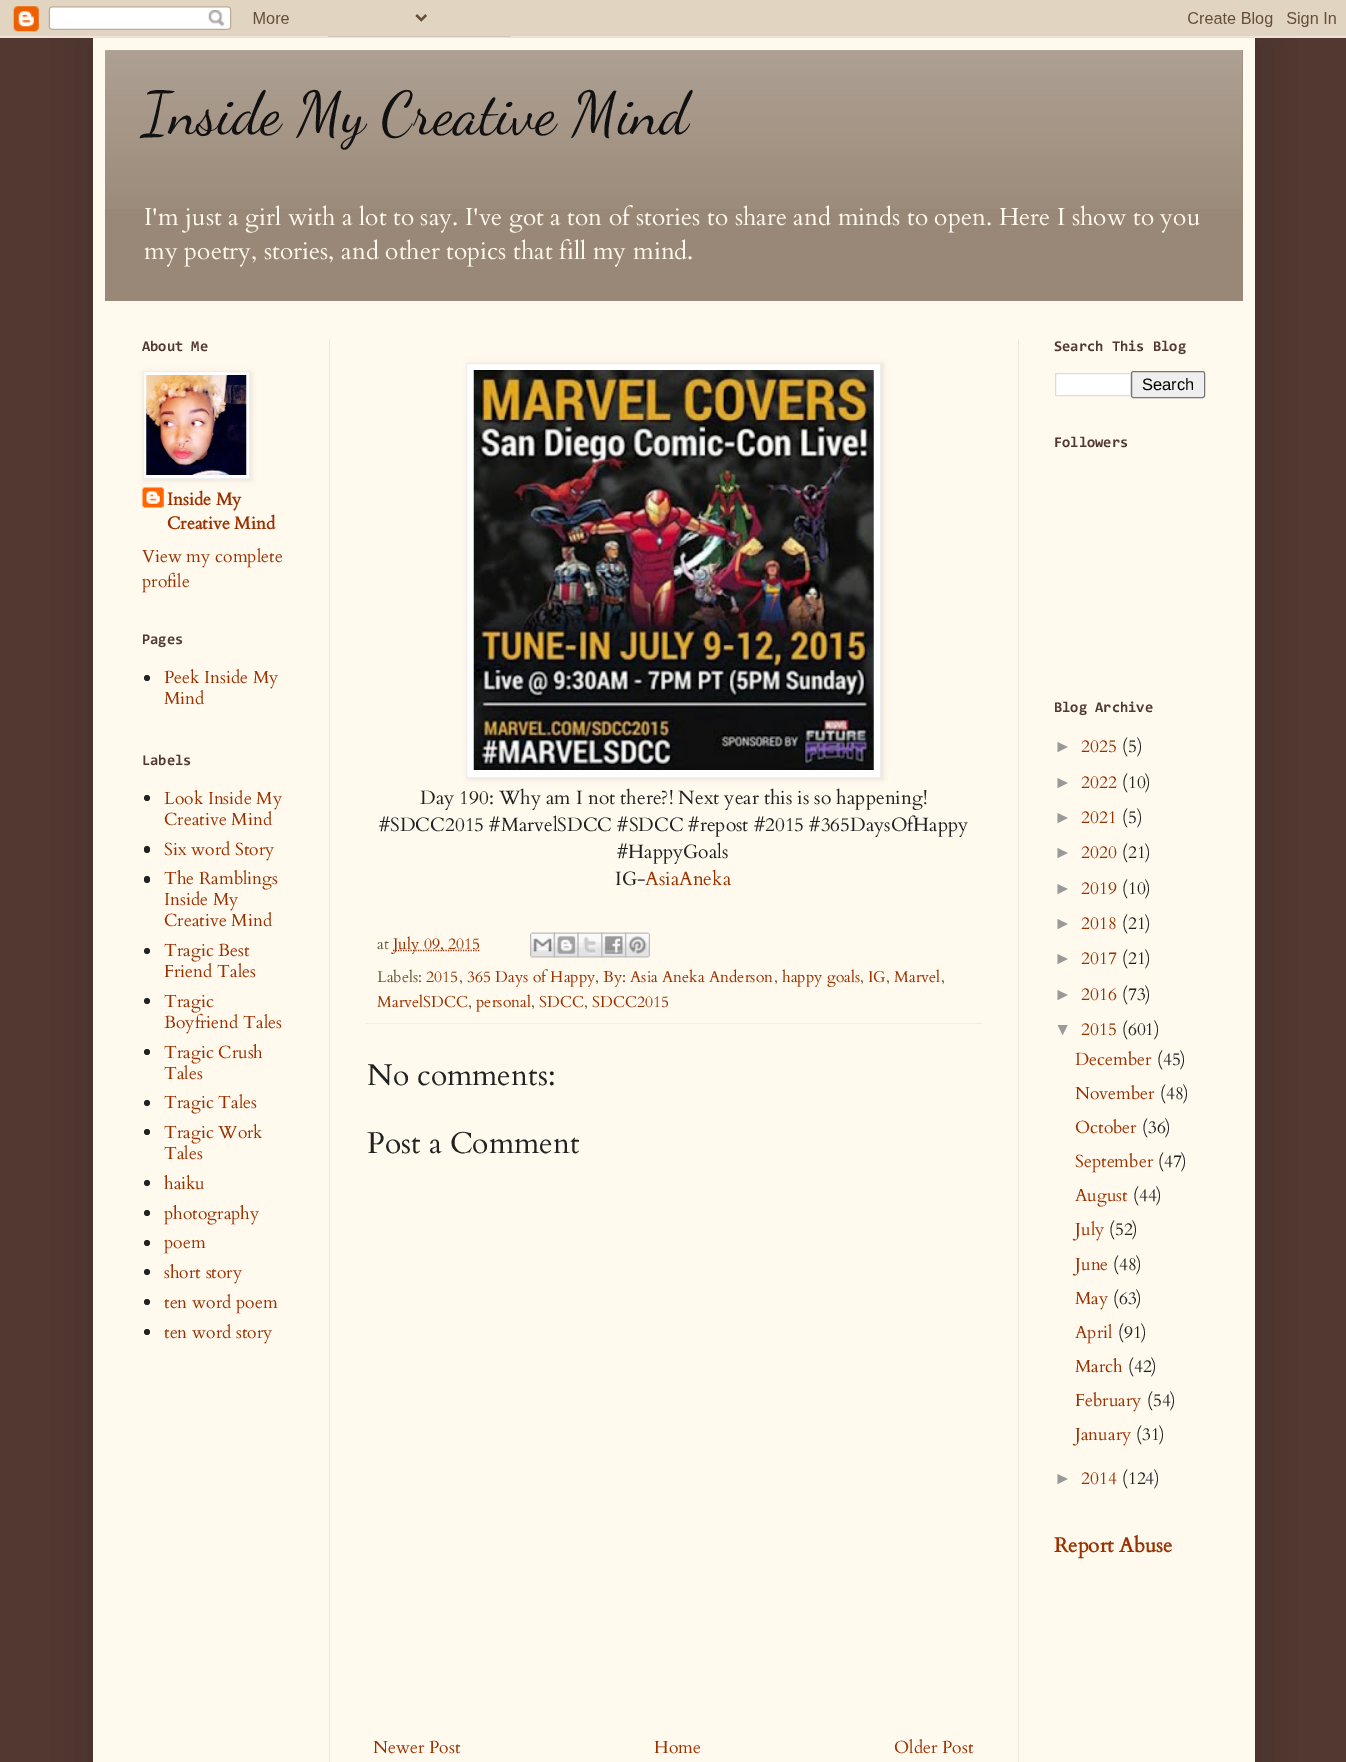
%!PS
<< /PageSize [1346 1762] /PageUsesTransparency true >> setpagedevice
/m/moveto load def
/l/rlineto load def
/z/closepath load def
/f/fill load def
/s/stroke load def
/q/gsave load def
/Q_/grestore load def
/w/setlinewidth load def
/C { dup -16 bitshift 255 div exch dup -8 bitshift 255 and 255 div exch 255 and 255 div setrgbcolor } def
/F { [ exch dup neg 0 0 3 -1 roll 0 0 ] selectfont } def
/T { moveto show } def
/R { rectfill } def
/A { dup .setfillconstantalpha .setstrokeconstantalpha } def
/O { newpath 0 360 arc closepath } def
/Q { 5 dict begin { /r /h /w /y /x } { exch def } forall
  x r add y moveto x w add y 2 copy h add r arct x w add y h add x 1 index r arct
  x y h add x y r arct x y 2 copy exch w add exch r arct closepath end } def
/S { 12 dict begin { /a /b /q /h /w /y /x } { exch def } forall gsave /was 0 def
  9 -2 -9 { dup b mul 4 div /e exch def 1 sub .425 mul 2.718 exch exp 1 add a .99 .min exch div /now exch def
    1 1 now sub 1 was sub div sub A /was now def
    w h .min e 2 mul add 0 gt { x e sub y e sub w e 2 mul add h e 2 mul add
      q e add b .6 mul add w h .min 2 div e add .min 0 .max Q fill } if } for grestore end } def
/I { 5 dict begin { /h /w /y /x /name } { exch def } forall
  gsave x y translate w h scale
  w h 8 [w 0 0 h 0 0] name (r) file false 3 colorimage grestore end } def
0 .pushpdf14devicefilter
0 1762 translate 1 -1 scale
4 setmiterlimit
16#513831 C
0 0 1346 1762 R
16#000000 C
93 38 1162 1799 0 25 .15 S
(1.rgb) 0 0 1346 38 I
16#FFF9EE C
93 38 1162 1724 R
16#998877 C
105 50 1138 251 R
(2.rgb) 105 50 1138 159 I
/DancingScript-Regular 60 F
16#111111 C
(Inside My Creative Mind) 142 133 T
/Cardo-Regular 24.5 F
16#FFF9EE C
(I'm just a girl with a lot to say. I've got a ton of stories to share and minds to open. Here I show to you) 144 225 T
(my poetry, stories, and other topics that fill my mind.) 144 259 T
16#EEE5DD C
329 339 1 1423 R
1018 339 1 1423 R
/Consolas-Bold 15 F
16#513831 C
(About Me) 142 351 T
(4.rgb) 142 487 22 21 I
16#000000 C
144 373 107 107 0 3 .1 S
16#FFFFFF C
143.5 371.5 m 106 0 l 0 107 l -106 0 l z q f Q_
16#EEEEEE C
s
(3.rgb) 146 375 101 100 I
/Cardo-Bold 17.5 F
16#993200 C
(Inside My) 167 505 T
(Creative Mind) 167 529 T
/Cardo-Regular 17.5 F
(View my complete) 142 562 T
(profile) 142 587 T
/Consolas-Bold 15 F
16#513831 C
(Pages) 142 644 T
16#222222 C
147 678 3 O f
/Cardo-Regular 17.5 F
16#993200 C
(Peek Inside My) 164 683 T
(Mind) 164 704 T
/Consolas-Bold 15 F
16#513831 C
(Labels) 142 765 T
16#222222 C
147 798 3 O f
/Cardo-Regular 17.5 F
16#993200 C
(Look Inside My) 164 804 T
(Creative Mind) 164 825 T
16#222222 C
144 846 6 7 3 Q f
16#993200 C
(Six word Story) 164 855 T
16#222222 C
144 876 6 7 3 Q f
16#993200 C
(The Ramblings) 164 884 T
(Inside My) 164 905 T
(Creative Mind) 164 926 T
16#222222 C
147 951 3 O f
16#993200 C
(Tragic Best) 164 956 T
(Friend Tales) 164 977 T
16#222222 C
147 1001 3 O f
16#993200 C
(Tragic) 164 1007 T
(Boyfriend Tales) 164 1028 T
16#222222 C
147 1052 3 O f
16#993200 C
(Tragic Crush) 164 1058 T
(Tales) 164 1079 T
16#222222 C
147 1103 3 O f
16#993200 C
(Tragic Tales) 164 1108 T
16#222222 C
147 1132 3 O f
16#993200 C
(Tragic Work) 164 1138 T
(Tales) 164 1159 T
16#222222 C
147 1183 3 O f
16#993200 C
(haiku) 164 1189 T
16#222222 C
147 1213 3 O f
16#993200 C
(photography) 164 1219 T
16#222222 C
147 1243 3 O f
16#993200 C
(poem) 164 1248 T
16#222222 C
147 1272 3 O f
16#993200 C
(short story) 164 1278 T
16#222222 C
147 1302 3 O f
16#993200 C
(ten word poem) 164 1308 T
16#222222 C
147 1332 3 O f
16#993200 C
(ten word story) 164 1338 T
16#000000 C
468 364 415 415 0 3 .1 S
16#FFFFFF C
466.5 363.5 m 414 0 l 0 414 l -414 0 l z q f Q_
16#EEEEEE C
s
(5.rgb) 473 370 401 400 I
/Cardo-Regular 19.25 F
16#222222 C
(Day 190: Why am I not there?! Next year this is so happening!) 420 804 T
(#SDCC2015 #MarvelSDCC #SDCC #repost #2015 #365DaysOfHappy) 379 831 T
(#HappyGoals) 617 858 T
(IG-) 615 885 T
16#993200 C
(AsiaAneka) 645 885 T
16#EEEEEE C
365 1023 618 1 R
/Cardo-Regular 15.75 F
16#665B33 C
(at) 377 949 T
16#993200 C
1.2 w
[1.25 1.25] 0 setdash
393 950.5 m 87 0 l s
(July 09, 2015) 393 949 T
(6.rgb) 530 932 25 26 I
(7.rgb) 553 932 26 26 I
(8.rgb) 577 932 26 26 I
(9.rgb) 601 932 26 26 I
(10.rgb) 625 932 25 26 I
16#665B33 C
(Labels:) 377 982 T
16#993200 C
(2015) 426 982 T
16#665B33 C
(,) 459 982 T
16#993200 C
(365 Days of Happy) 467 982 T
16#665B33 C
(,) 595 982 T
16#993200 C
(By: Asia Aneka Anderson) 603 982 T
16#665B33 C
(,) 774 982 T
16#993200 C
(happy goals) 782 982 T
16#665B33 C
(,) 860 982 T
16#993200 C
(IG) 868 982 T
16#665B33 C
(,) 886 982 T
16#993200 C
(Marvel) 894 982 T
16#665B33 C
(,) 941 982 T
16#993200 C
(MarvelSDCC) 377 1007 T
16#665B33 C
(,) 468 1007 T
16#993200 C
(personal) 476 1007 T
16#665B33 C
(,) 531 1007 T
16#993200 C
(SDCC) 539 1007 T
16#665B33 C
(,) 584 1007 T
16#993200 C
(SDCC2015) 592 1007 T
/Cardo-Regular 30 F
16#222222 C
(No comments:) 367 1085 T
(Post a Comment) 367 1153 T
/Cardo-Regular 17.5 F
16#993200 C
(Newer Post) 373 1753 T
(Home) 654 1753 T
(Older Post) 894 1753 T
/Consolas-Bold 15 F
16#513831 C
(Search This Blog) 1054 351 T
16#FFFFFF C
1055.5 373.5 m 75 0 l 0 22 l -75 0 l z q f Q_
16#DDDDDD C
1 w
[] 0 setdash
s
16#EFEFEF C
1131.5 371.5 73 26 2 Q q f Q_
16#767676 C
s
/LiberationSans-Regular 16.5 F
16#000000 C
(Search) 1142 390 T
/Consolas-Bold 15 F
16#513831 C
(Followers) 1054 447 T
(Blog Archive) 1054 712 T
/LiberationSans-Regular 17.5 F
16#999999 C
(►) 1054 752 T
/Cardo-Regular 17.5 F
16#993200 C
(2025) 1081 752 T
16#222222 C
(\(5\)) 1122 752 T
/LiberationSans-Regular 17.5 F
16#999999 C
(►) 1054 788 T
/Cardo-Regular 17.5 F
16#993200 C
(2022) 1081 788 T
16#222222 C
(\(10\)) 1122 788 T
/LiberationSans-Regular 17.5 F
16#999999 C
(►) 1054 823 T
/Cardo-Regular 17.5 F
16#993200 C
(2021) 1081 823 T
16#222222 C
(\(5\)) 1122 823 T
/LiberationSans-Regular 17.5 F
16#999999 C
(►) 1054 858 T
/Cardo-Regular 17.5 F
16#993200 C
(2020) 1081 858 T
16#222222 C
(\(21\)) 1122 858 T
/LiberationSans-Regular 17.5 F
16#999999 C
(►) 1054 894 T
/Cardo-Regular 17.5 F
16#993200 C
(2019) 1081 894 T
16#222222 C
(\(10\)) 1122 894 T
/LiberationSans-Regular 17.5 F
16#999999 C
(►) 1054 929 T
/Cardo-Regular 17.5 F
16#993200 C
(2018) 1081 929 T
16#222222 C
(\(21\)) 1122 929 T
/LiberationSans-Regular 17.5 F
16#999999 C
(►) 1054 964 T
/Cardo-Regular 17.5 F
16#993200 C
(2017) 1081 964 T
16#222222 C
(\(21\)) 1122 964 T
/LiberationSans-Regular 17.5 F
16#999999 C
(►) 1054 1000 T
/Cardo-Regular 17.5 F
16#993200 C
(2016) 1081 1000 T
16#222222 C
(\(73\)) 1122 1000 T
/LiberationSans-Regular 17.5 F
16#999999 C
(▼) 1054 1035 T
/Cardo-Regular 17.5 F
16#993200 C
(2015) 1081 1035 T
16#222222 C
(\(601\)) 1122 1035 T
16#993200 C
(December) 1075 1065 T
16#222222 C
(\(45\)) 1157 1065 T
16#993200 C
(November) 1075 1099 T
16#222222 C
(\(48\)) 1160 1099 T
16#993200 C
(October) 1075 1133 T
16#222222 C
(\(36\)) 1142 1133 T
16#993200 C
(September) 1075 1167 T
16#222222 C
(\(47\)) 1158 1167 T
16#993200 C
(August) 1075 1201 T
16#222222 C
(\(44\)) 1133 1201 T
16#993200 C
(July) 1075 1235 T
16#222222 C
(\(52\)) 1109 1235 T
16#993200 C
(June) 1075 1270 T
16#222222 C
(\(48\)) 1113 1270 T
16#993200 C
(May) 1075 1304 T
16#222222 C
(\(63\)) 1113 1304 T
16#993200 C
(April) 1075 1338 T
16#222222 C
(\(91\)) 1118 1338 T
16#993200 C
(March) 1075 1372 T
16#222222 C
(\(42\)) 1128 1372 T
16#993200 C
(February) 1075 1406 T
16#222222 C
(\(54\)) 1147 1406 T
16#993200 C
(January) 1075 1440 T
16#222222 C
(\(31\)) 1136 1440 T
/LiberationSans-Regular 17.5 F
16#999999 C
(►) 1054 1484 T
/Cardo-Regular 17.5 F
16#993200 C
(2014) 1081 1484 T
16#222222 C
(\(124\)) 1122 1484 T
/Cardo-Bold 20.5 F
16#993200 C
(Report Abuse) 1054 1552 T
.poppdf14devicefilter showpage
